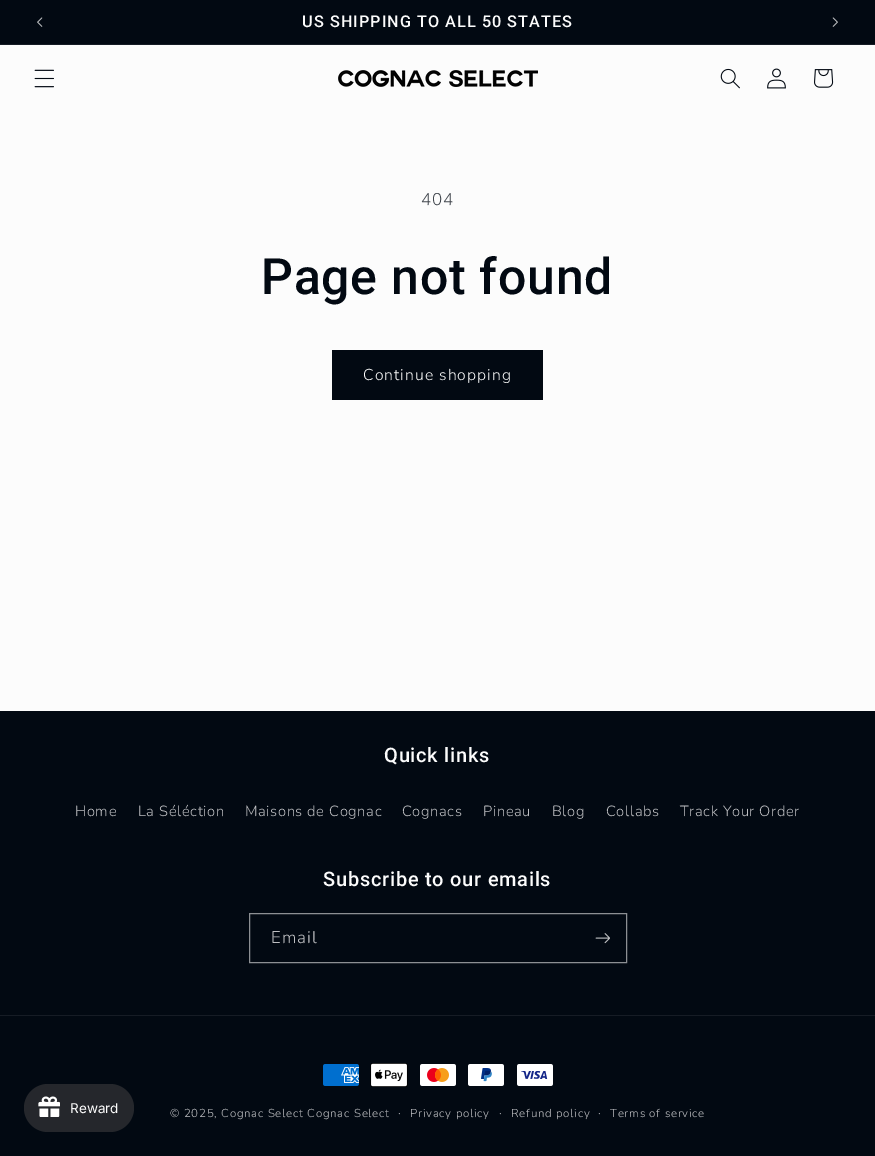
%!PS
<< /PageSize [875 1156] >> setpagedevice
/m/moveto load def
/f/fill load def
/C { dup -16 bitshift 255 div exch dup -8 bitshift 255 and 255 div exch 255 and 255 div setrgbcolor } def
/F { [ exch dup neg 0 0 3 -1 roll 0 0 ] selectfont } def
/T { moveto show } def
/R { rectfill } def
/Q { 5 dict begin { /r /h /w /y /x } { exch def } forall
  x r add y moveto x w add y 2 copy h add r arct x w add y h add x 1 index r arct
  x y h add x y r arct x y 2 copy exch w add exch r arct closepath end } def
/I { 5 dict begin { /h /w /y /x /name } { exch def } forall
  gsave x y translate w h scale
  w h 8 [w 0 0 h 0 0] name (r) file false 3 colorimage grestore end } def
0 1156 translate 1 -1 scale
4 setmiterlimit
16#FCFCFC C
0 0 875 1156 R
16#020912 C
0 0 875 44 R
16#161C25 C
0 44 875 1 R
(1.rgb) 37 17 6 10 I
/Roboto-Medium 16.25 F
16#FCFCFC C
302 27 m 1.05 0 (US SHIPPING TO ALL 50 STATES) ashow
(2.rgb) 832 17 6 10 I
(3.rgb) 34 69 20 19 I
(4.rgb) 338 70 200 17 I
(5.rgb) 720 68 20 21 I
(6.rgb) 767 68 19 21 I
(7.rgb) 814 69 20 19 I
/Nunito-Light 17 F
16#41464D C
421 205 m .6 0 (404) ashow
/Roboto-Medium 50 F
16#020912 C
261 294 m .75 0 (Page not found) ashow
332 350 211 50 R
/Nunito-Light 15.75 F
16#FCFCFC C
363 380 m 1.05 0 (Continue shopping) ashow
16#020912 C
0 711 875 445 R
/Roboto-Medium 20 F
16#FCFCFC C
384 762 m .75 0 (Quick links) ashow
/Nunito-Light 14.75 F
16#BEBFC2 C
75 816 m .6 0 (Home) ashow
138 816 m .6 0 (La Séléction) ashow
245 816 m .6 0 (Maisons de Cognac) ashow
402 816 m .6 0 (Cognacs) ashow
483 816 m .6 0 (Pineau) ashow
552 816 m .6 0 (Blog) ashow
606 816 m .6 0 (Collabs) ashow
680 816 m .6 0 (Track Your Order) ashow
/Roboto-Medium 20 F
16#FCFCFC C
323 886 m .75 0 (Subscribe to our emails) ashow
16#8C8F93 C
249.5 913.5 377 49 rectstroke
/Nunito-Light 17 F
16#BEBFC2 C
271 943 m 1.05 0 (Email) ashow
(8.rgb) 595 933 15 11 I
16#161C25 C
0 1015 875 1 R
(9.rgb) 323 1064 36 22 I
(10.rgb) 370 1063 38 24 I
(11.rgb) 420 1064 36 22 I
(12.rgb) 468 1064 36 22 I
(13.rgb) 517 1064 36 22 I
/Nunito-Light 11.5 F
16#BEBFC2 C
170 1117 m .75 0 (© 2025, Cognac Select Cognac Select) ashow
/Nunito-Light 13 F
398 1117 m .75 0 (·) ashow
/Nunito-Light 11.5 F
410 1117 m .75 0 (Privacy policy) ashow
/Nunito-Light 13 F
499 1117 m .75 0 (·) ashow
/Nunito-Light 11.5 F
511 1117 m .75 0 (Refund policy) ashow
/Nunito-Light 13 F
598 1117 m .75 0 (·) ashow
/Nunito-Light 11.5 F
610 1117 m .75 0 (Terms of service) ashow
16#25272C C
24 1084 110 48 24 Q f
(14.rgb) 38 1096 22 21 I
/Inter-Regular 13.5 F
16#FCFCFC C
(Reward) 70 1113 T
showpage
